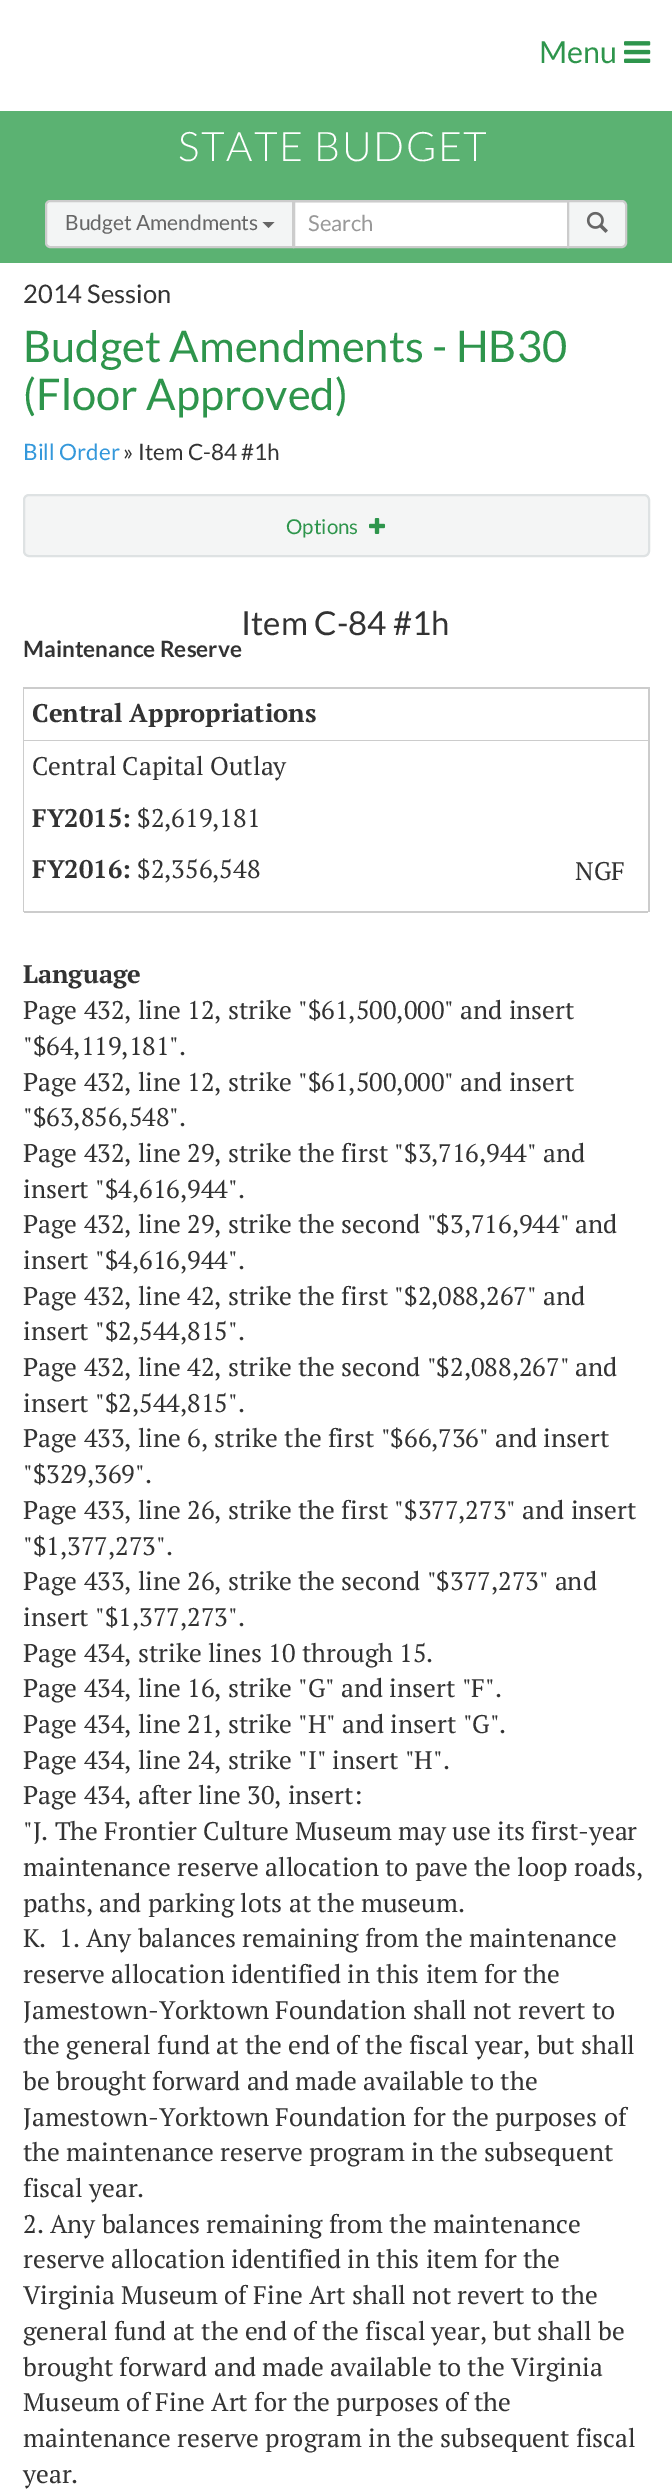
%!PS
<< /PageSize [672 2489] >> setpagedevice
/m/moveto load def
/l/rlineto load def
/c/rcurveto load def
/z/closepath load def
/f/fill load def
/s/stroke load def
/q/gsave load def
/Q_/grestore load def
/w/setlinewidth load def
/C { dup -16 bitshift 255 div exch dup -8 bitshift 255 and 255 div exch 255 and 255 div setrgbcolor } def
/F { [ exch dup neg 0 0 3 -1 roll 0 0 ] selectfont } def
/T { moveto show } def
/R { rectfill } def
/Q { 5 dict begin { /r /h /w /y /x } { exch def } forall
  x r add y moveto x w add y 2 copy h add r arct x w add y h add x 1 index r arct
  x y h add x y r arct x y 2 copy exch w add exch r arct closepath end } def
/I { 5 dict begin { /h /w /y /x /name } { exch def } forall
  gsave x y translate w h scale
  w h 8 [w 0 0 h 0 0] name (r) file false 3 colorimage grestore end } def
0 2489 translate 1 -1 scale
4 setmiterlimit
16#FFFFFF C
0 0 672 2489 R
/Lato-Regular 30.5 F
16#2E954C C
(Menu) 539 63 T
(1.rgb) 624 41 27 22 I
16#5BB272 C
0 111 672 152 R
/Lato-Light 40.75 F
16#FFFFFF C
178 161 m 1.5 0 (STATE BUDGET) ashow
295 203 272 43 R
16#ECECEC C
294 202 273 1 R
16#CCCCCC C
2 w
294 201 274 46 rectstroke
16#F3F5F5 C
50 201 m 243 0 l 0 46 l -243 0 l -2 0 -4 -2 -4 -4 c 0 -38 l 0 -2 2 -4 4 -4 c z q f Q_
16#CCCCCC C
s
/Lato-Regular 21 F
16#666666 C
(Budget Amendments) 65 230 T
262.5 222 m 12 0 l -6 6 l z f
/Lato-Regular 22 F
16#999999 C
(Search) 308 231 T
16#F3F5F5 C
568 201 m 54 0 l 2 0 4 2 4 4 c 0 38 l 0 2 -2 4 -4 4 c -54 0 l z q f Q_
16#CCCCCC C
s
(2.rgb) 586 211 22 22 I
/Lato-Regular 25.5 F
16#333333 C
(2014 Session) 23 303 T
/Lato-Regular 43.5 F
16#2E954C C
(Budget Amendments - HB30) 23 362 T
(\(Floor Approved\)) 23 410 T
/Lato-Regular 22.5 F
16#3498DB C
(Bill Order) 23 460 T
16#333333 C
(» Item C-84 #1h) 123 460 T
16#F4F5F5 C
24 495 625 61 5 Q q f Q_
16#DEE2E3 C
s
/Lato-Regular 20.5 F
16#2E954C C
(Options) 286 534 T
(3.rgb) 369 518 17 16 I
/Lato-Regular 33 F
16#333333 C
(Item C-84 #1h) 241 635 T
/Lato-Bold 22.5 F
(Maintenance Reserve) 23 657 T
16#CCCCCC C
23 687 627 2 R
648 687 2 225 R
23 687 2 225 R
24 740 624 1 R
16#FFFFFF C
24 689 1 51 R
/PTSerif-Bold 25.5 F
16#333333 C
(Central Appropriations) 32 722 T
16#CCCCCC C
24 911 624 2 R
16#FFFFFF C
24 741 1 170 R
/PTSerif-Regular 25.5 F
16#333333 C
(Central Capital Outlay) 32 775 T
/PTSerif-Bold 25.5 F
(FY2015:) 32 827 T
/PTSerif-Regular 25.5 F
($2,619,181) 137 827 T
/PTSerif-Bold 25.5 F
(FY2016:) 32 878 T
/PTSerif-Regular 25.5 F
($2,356,548) 137 878 T
(NGF) 575 880 T
/PTSerif-Bold 25.5 F
(Language) 23 983 T
/PTSerif-Regular 25.5 F
(Page 432, line 12, strike "$61,500,000" and insert) 23 1019 T
("$64,119,181".) 23 1055 T
(Page 432, line 12, strike "$61,500,000" and insert) 23 1091 T
("$63,856,548".) 23 1126 T
(Page 432, line 29, strike the first "$3,716,944" and) 23 1162 T
(insert "$4,616,944".) 23 1198 T
(Page 432, line 29, strike the second "$3,716,944" and) 23 1233 T
(insert "$4,616,944".) 23 1269 T
(Page 432, line 42, strike the first "$2,088,267" and) 23 1305 T
(insert "$2,544,815".) 23 1340 T
(Page 432, line 42, strike the second "$2,088,267" and) 23 1376 T
(insert "$2,544,815".) 23 1412 T
(Page 433, line 6, strike the first "$66,736" and insert) 23 1447 T
("$329,369".) 23 1483 T
(Page 433, line 26, strike the first "$377,273" and insert) 23 1519 T
("$1,377,273".) 23 1555 T
(Page 433, line 26, strike the second "$377,273" and) 23 1590 T
(insert "$1,377,273".) 23 1626 T
(Page 434, strike lines 10 through 15.) 23 1662 T
(Page 434, line 16, strike "G" and insert "F".) 23 1697 T
(Page 434, line 21, strike "H" and insert "G".) 23 1733 T
(Page 434, line 24, strike "I" insert "H".) 23 1769 T
(Page 434, after line 30, insert:) 23 1804 T
("J. The Frontier Culture Museum may use its first-year) 23 1840 T
(maintenance reserve allocation to pave the loop roads,) 23 1876 T
(paths, and parking lots at the museum.) 23 1912 T
(K.  1. Any balances remaining from the maintenance) 23 1947 T
(reserve allocation identified in this item for the) 23 1983 T
(Jamestown-Yorktown Foundation shall not revert to) 23 2019 T
(the general fund at the end of the fiscal year, but shall) 23 2054 T
(be brought forward and made available to the) 23 2090 T
(Jamestown-Yorktown Foundation for the purposes of) 23 2126 T
(the maintenance reserve program in the subsequent) 23 2161 T
(fiscal year.) 23 2197 T
(2. Any balances remaining from the maintenance) 23 2233 T
(reserve allocation identified in this item for the) 23 2268 T
(Virginia Museum of Fine Art shall not revert to the) 23 2304 T
(general fund at the end of the fiscal year, but shall be) 23 2340 T
(brought forward and made available to the Virginia) 23 2376 T
(Museum of Fine Art for the purposes of the) 23 2411 T
(maintenance reserve program in the subsequent fiscal) 23 2447 T
(year.) 23 2483 T
showpage
